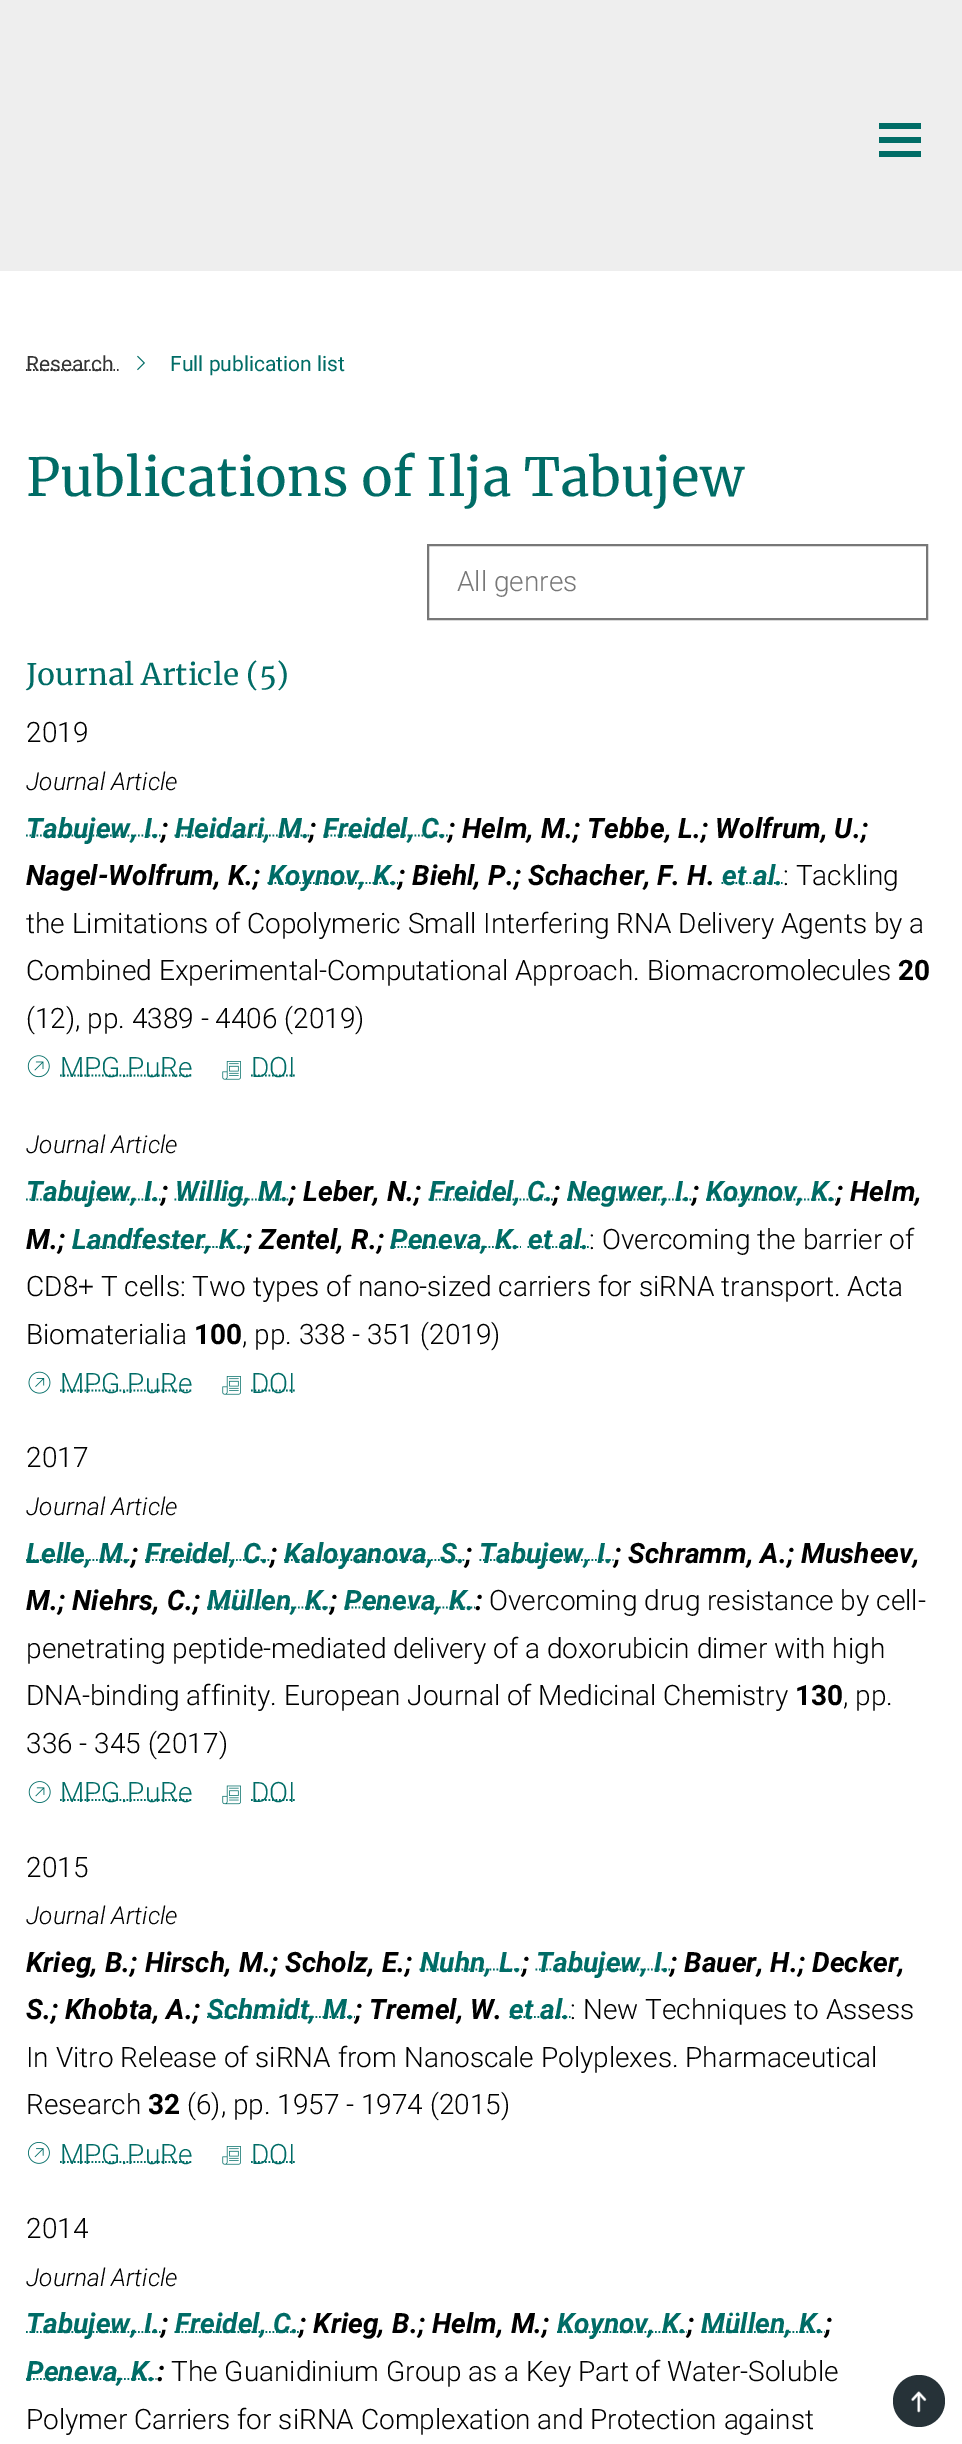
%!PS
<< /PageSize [962 2444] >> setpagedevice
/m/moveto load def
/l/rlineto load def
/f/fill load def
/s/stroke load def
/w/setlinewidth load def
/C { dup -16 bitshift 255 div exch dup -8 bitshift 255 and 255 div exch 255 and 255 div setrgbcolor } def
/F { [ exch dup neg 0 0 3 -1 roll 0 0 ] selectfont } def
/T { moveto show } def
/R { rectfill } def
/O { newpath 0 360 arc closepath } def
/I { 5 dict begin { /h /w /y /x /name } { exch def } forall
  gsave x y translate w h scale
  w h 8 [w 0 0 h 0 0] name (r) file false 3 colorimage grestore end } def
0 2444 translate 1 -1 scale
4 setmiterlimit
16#FFFFFF C
0 0 962 2444 R
16#EEEEEE C
0 0 962 271 R
16#006C66 C
879 123 42 6 R
879 137 42 6 R
879 151 42 6 R
16#333333 C
1.8 w
[1.75 1.75] 0 setdash
26 370 m 87.5 0 l s
/Roboto-Regular 21 F
(Research) 26 371 T
[] 0 setdash
113.5 370 m 1.5 0 l 117 370 m 1.5 0 l s
(1.rgb) 137 355 8 16 I
16#006C66 C
(Full publication list) 170 371 T
/Merriweather-Regular 52.5 F
(Publications of Ilja Tabujew) 26 496 T
16#777777 C
2 w
428 545 499 74 rectstroke
/Roboto-Light 28 F
(All genres) 457 591 T
/Merriweather-Regular 29.75 F
16#006C66 C
(Journal Article \(5\)) 26 685 T
/Roboto-Light 28 F
16#000000 C
(2019) 26 742 T
/Roboto-LightItalic 24.5 F
(Journal Article) 26 790 T
16#006C66 C
1.8 w
[1.75 1.75] 0 setdash
26 835.5 m 134.5 0 l s
/Roboto-BoldItalic 28 F
(Tabujew, I.) 26 838 T
16#000000 C
(;) 161 838 T
16#006C66 C
174.5 835.5 m 135 0 l s
(Heidari, M.) 175 838 T
16#000000 C
(;) 309 838 T
16#006C66 C
323.5 835.5 m 124.5 0 l s
(Freidel, C.) 323 838 T
16#000000 C
(; Helm, M.; Tebbe, L.; Wolfrum, U.;) 448 838 T
(Nagel-Wolfrum, K.;) 26 885 T
16#006C66 C
267.5 883 m 130.5 0 l s
(Koynov, K.) 268 885 T
16#000000 C
(; Biehl, P.; Schacher, F. H.) 398 885 T
16#006C66 C
721.5 883 m 61 0 l s
(et al.) 722 885 T
/Roboto-Light 28 F
16#000000 C
(: Tackling) 783 885 T
(the Limitations of Copolymeric Small Interfering RNA Delivery Agents by a) 26 933 T
(Combined Experimental-Computational Approach. Biomacromolecules) 26 980 T
/Roboto-Bold 28 F
(20) 898 980 T
/Roboto-Light 28 F
(\(12\), pp. 4389 - 4406 \(2019\)) 26 1028 T
(2.rgb) 27 1055 23 23 I
16#006C66 C
60 1075.5 m 132 0 l s
(MPG.PuRe) 60 1077 T
(3.rgb) 222 1061 19 19 I
251 1075.5 m 44.5 0 l s
(DOI) 251 1077 T
/Roboto-LightItalic 24.5 F
16#000000 C
(Journal Article) 26 1153 T
16#006C66 C
26 1199.5 m 134.5 0 l s
/Roboto-BoldItalic 28 F
(Tabujew, I.) 26 1201 T
16#000000 C
(;) 161 1201 T
16#006C66 C
174.5 1199.5 m 114.5 0 l s
(Willig, M.) 175 1201 T
16#000000 C
(; Leber, N.;) 289 1201 T
16#006C66 C
428.5 1199.5 m 124.5 0 l s
(Freidel, C.) 429 1201 T
16#000000 C
(;) 553 1201 T
16#006C66 C
567 1199.5 m 124.5 0 l s
(Negwer, I.) 567 1201 T
16#000000 C
(;) 692 1201 T
16#006C66 C
706 1199.5 m 130 0 l s
(Koynov, K.) 706 1201 T
16#000000 C
(; Helm,) 836 1201 T
(M.;) 26 1249 T
16#006C66 C
72.5 1247 m 172.5 0 l s
(Landfester, K.) 72 1249 T
16#000000 C
(; Zentel, R.;) 245 1249 T
16#006C66 C
390.5 1247 m 130.5 0 l s
(Peneva, K.) 390 1249 T
527.5 1247 m 61.5 0 l s
(et al.) 528 1249 T
/Roboto-Light 28 F
16#000000 C
(: Overcoming the barrier of) 589 1249 T
(CD8+ T cells: Two types of nano-sized carriers for siRNA transport. Acta) 26 1296 T
(Biomaterialia) 26 1344 T
/Roboto-Bold 28 F
(100) 194 1344 T
/Roboto-Light 28 F
(, pp. 338 - 351 \(2019\)) 242 1344 T
(4.rgb) 28 1371 23 23 I
16#006C66 C
60 1390.5 m 132 0 l s
(MPG.PuRe) 60 1393 T
(3.rgb) 222 1376 19 19 I
251 1390.5 m 44.5 0 l s
(DOI) 251 1393 T
16#000000 C
(2017) 26 1467 T
/Roboto-LightItalic 24.5 F
(Journal Article) 26 1515 T
16#006C66 C
26 1560 m 105 0 l s
/Roboto-BoldItalic 28 F
(Lelle, M.) 26 1563 T
16#000000 C
(;) 131 1563 T
16#006C66 C
145 1560 m 124.5 0 l s
(Freidel, C.) 145 1563 T
16#000000 C
(;) 270 1563 T
16#006C66 C
284 1560 m 181 0 l s
(Kaloyanova, S.) 284 1563 T
16#000000 C
(;) 465 1563 T
16#006C66 C
479.5 1560 m 134 0 l s
(Tabujew, I.) 479 1563 T
16#000000 C
(; Schramm, A.; Musheev,) 614 1563 T
(M.; Niehrs, C.;) 26 1610 T
16#006C66 C
207 1607.5 m 123.5 0 l s
(Müllen, K.) 207 1610 T
16#000000 C
(;) 330 1610 T
16#006C66 C
344.5 1607.5 m 130.5 0 l s
(Peneva, K.) 344 1610 T
16#000000 C
(:) 475 1610 T
/Roboto-Light 28 F
(Overcoming drug resistance by cell-) 489 1610 T
(penetrating peptide-mediated delivery of a doxorubicin dimer with high) 26 1658 T
(DNA-binding affinity. European Journal of Medicinal Chemistry) 26 1705 T
/Roboto-Bold 28 F
(130) 795 1705 T
/Roboto-Light 28 F
(, pp.) 843 1705 T
(336 - 345 \(2017\)) 26 1753 T
(5.rgb) 28 1781 23 22 I
16#006C66 C
60 1800 m 132 0 l s
(MPG.PuRe) 60 1802 T
(6.rgb) 222 1785 19 20 I
251 1800 m 44.5 0 l s
(DOI) 251 1802 T
16#000000 C
(2015) 26 1877 T
/Roboto-LightItalic 24.5 F
(Journal Article) 26 1924 T
/Roboto-BoldItalic 28 F
(Krieg, B.; Hirsch, M.; Scholz, E.;) 26 1972 T
16#006C66 C
419.5 1969.5 m 102 0 l s
(Nuhn, L.) 420 1972 T
16#000000 C
(;) 522 1972 T
16#006C66 C
535.5 1969.5 m 134.5 0 l s
(Tabujew, I.) 536 1972 T
16#000000 C
(; Bauer, H.; Decker,) 670 1972 T
(S.; Khobta, A.;) 26 2019 T
16#006C66 C
207 2017 m 148 0 l s
(Schmidt, M.) 207 2019 T
16#000000 C
(; Tremel, W.) 355 2019 T
16#006C66 C
509.5 2017 m 61 0 l s
(et al.) 509 2019 T
/Roboto-Light 28 F
16#000000 C
(: New Techniques to Assess) 570 2019 T
(In Vitro Release of siRNA from Nanoscale Polyplexes. Pharmaceutical) 26 2067 T
(Research) 26 2114 T
/Roboto-Bold 28 F
(32) 148 2114 T
/Roboto-Light 28 F
(\(6\), pp. 1957 - 1974 \(2015\)) 187 2114 T
(7.rgb) 28 2142 22 22 I
16#006C66 C
60 2162 m 132 0 l s
(MPG.PuRe) 60 2164 T
(3.rgb) 222 2146 19 19 I
251 2162 m 44.5 0 l s
(DOI) 251 2164 T
16#000000 C
(2014) 26 2238 T
/Roboto-LightItalic 24.5 F
(Journal Article) 26 2286 T
16#006C66 C
26 2332 m 134.5 0 l s
/Roboto-BoldItalic 28 F
(Tabujew, I.) 26 2333 T
16#000000 C
(;) 161 2333 T
16#006C66 C
174.5 2332 m 124.5 0 l s
(Freidel, C.) 175 2333 T
16#000000 C
(; Krieg, B.; Helm, M.;) 299 2333 T
16#006C66 C
557 2332 m 130 0 l s
(Koynov, K.) 557 2333 T
16#000000 C
(;) 687 2333 T
16#006C66 C
701.5 2332 m 123 0 l s
(Müllen, K.) 701 2333 T
16#000000 C
(;) 825 2333 T
16#006C66 C
26 2379 m 130.5 0 l s
(Peneva, K.) 26 2381 T
16#000000 C
(:) 157 2381 T
/Roboto-Light 28 F
(The Guanidinium Group as a Key Part of Water-Soluble) 171 2381 T
(Polymer Carriers for siRNA Complexation and Protection against) 26 2429 T
16#263238 C
919 2401 26 O f
(8.rgb) 911 2391 16 22 I
showpage
